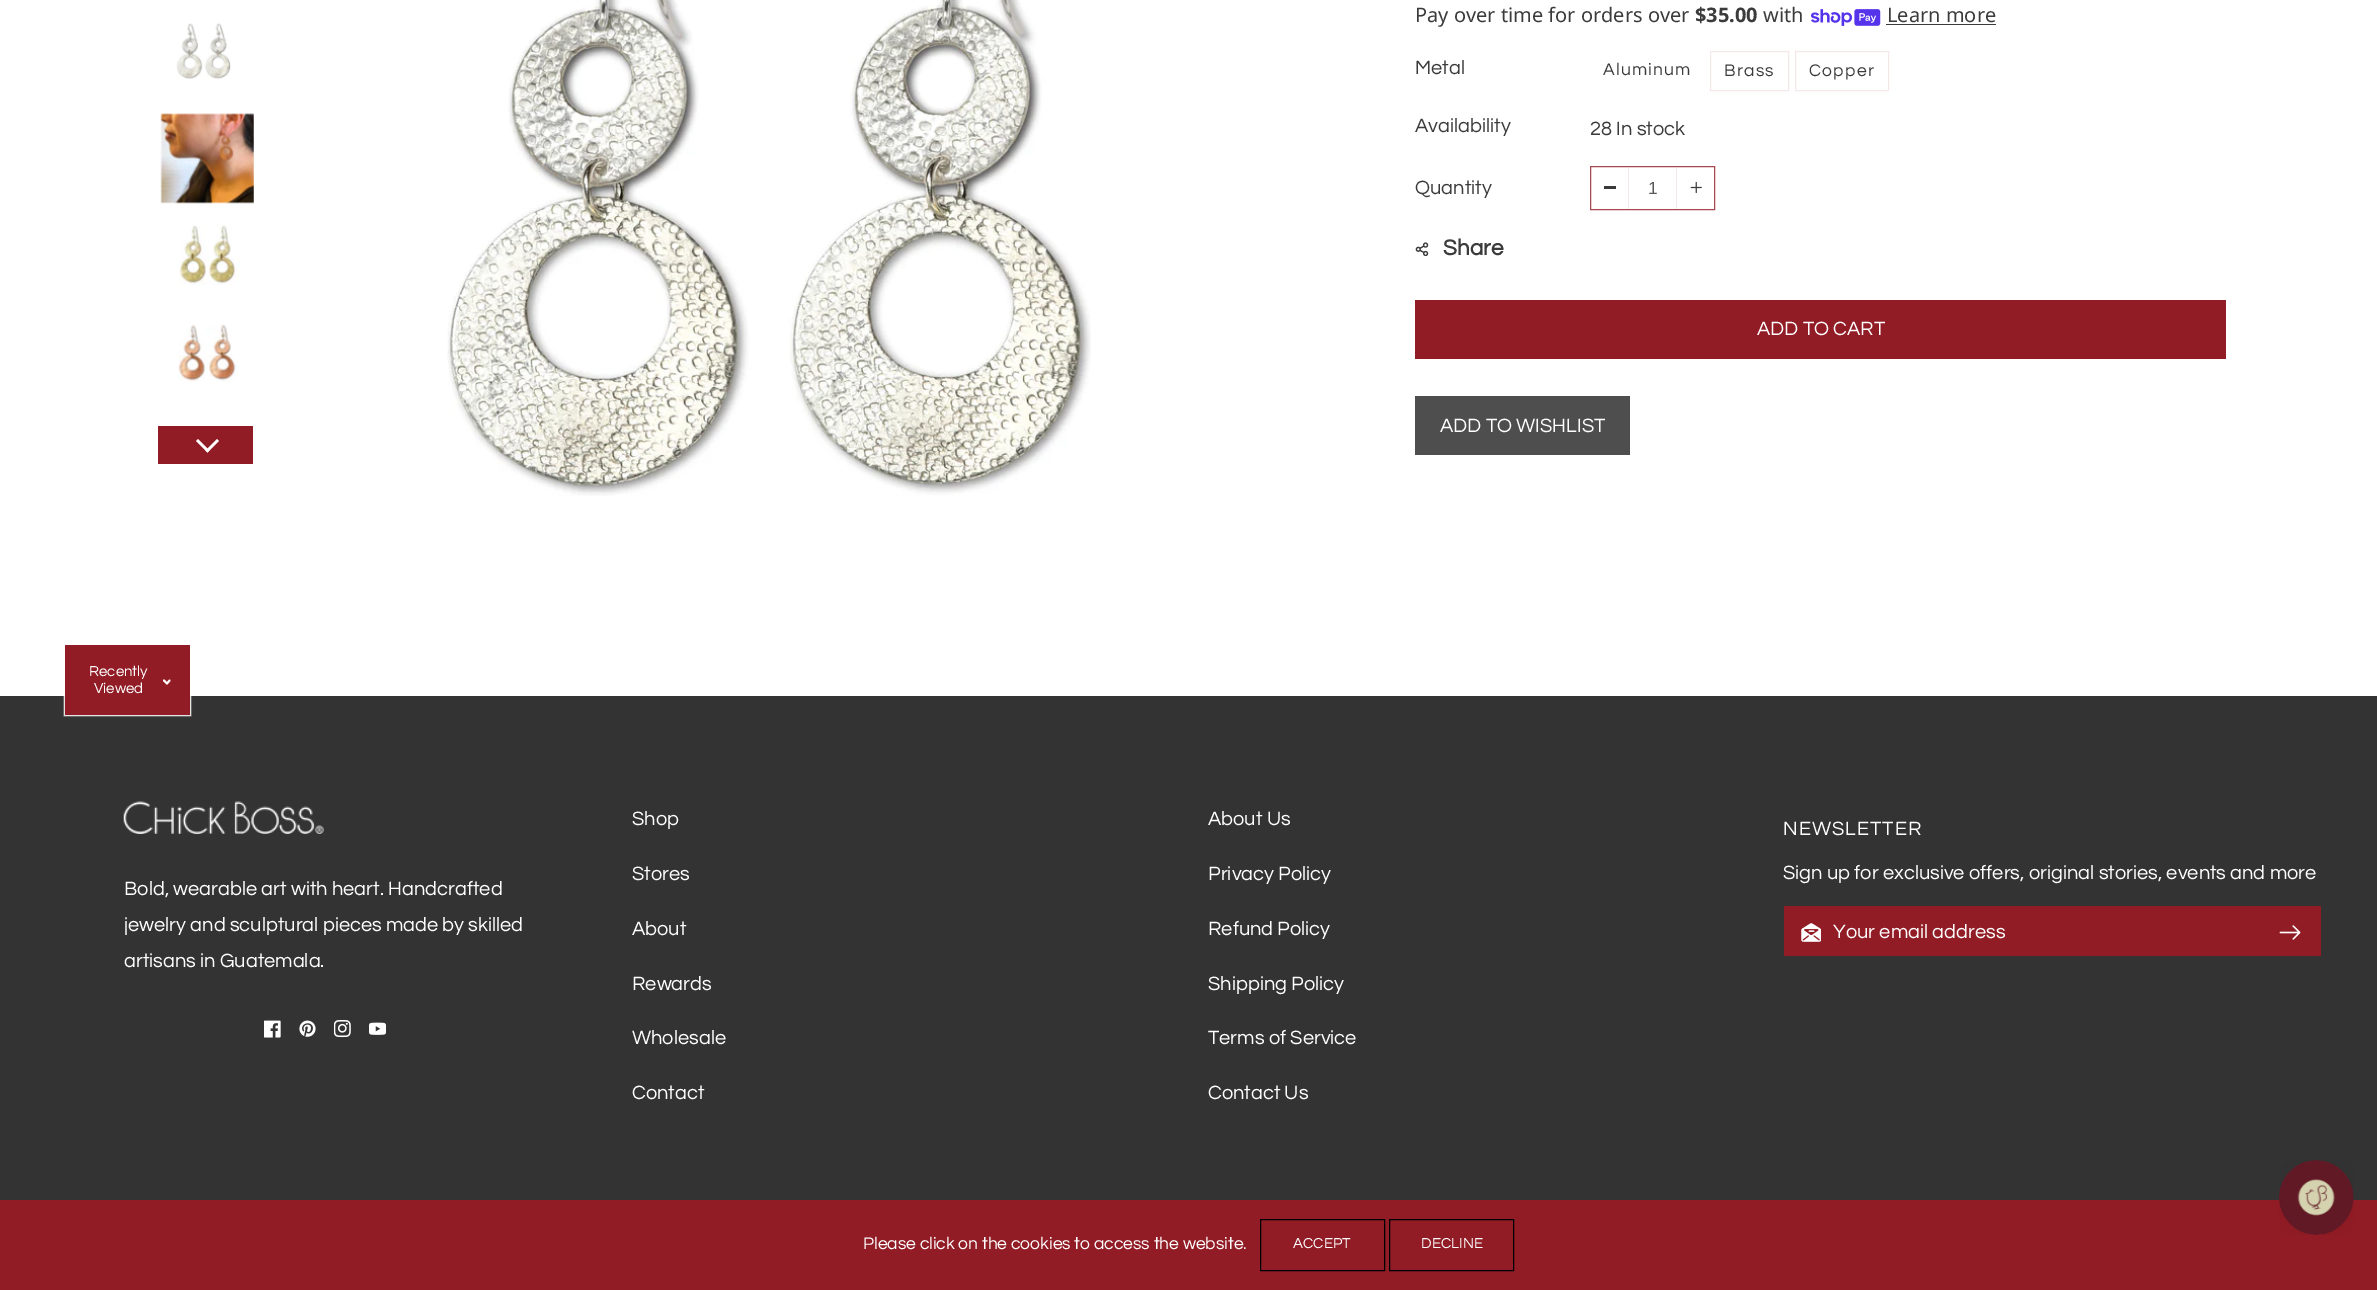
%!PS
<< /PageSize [2377 1290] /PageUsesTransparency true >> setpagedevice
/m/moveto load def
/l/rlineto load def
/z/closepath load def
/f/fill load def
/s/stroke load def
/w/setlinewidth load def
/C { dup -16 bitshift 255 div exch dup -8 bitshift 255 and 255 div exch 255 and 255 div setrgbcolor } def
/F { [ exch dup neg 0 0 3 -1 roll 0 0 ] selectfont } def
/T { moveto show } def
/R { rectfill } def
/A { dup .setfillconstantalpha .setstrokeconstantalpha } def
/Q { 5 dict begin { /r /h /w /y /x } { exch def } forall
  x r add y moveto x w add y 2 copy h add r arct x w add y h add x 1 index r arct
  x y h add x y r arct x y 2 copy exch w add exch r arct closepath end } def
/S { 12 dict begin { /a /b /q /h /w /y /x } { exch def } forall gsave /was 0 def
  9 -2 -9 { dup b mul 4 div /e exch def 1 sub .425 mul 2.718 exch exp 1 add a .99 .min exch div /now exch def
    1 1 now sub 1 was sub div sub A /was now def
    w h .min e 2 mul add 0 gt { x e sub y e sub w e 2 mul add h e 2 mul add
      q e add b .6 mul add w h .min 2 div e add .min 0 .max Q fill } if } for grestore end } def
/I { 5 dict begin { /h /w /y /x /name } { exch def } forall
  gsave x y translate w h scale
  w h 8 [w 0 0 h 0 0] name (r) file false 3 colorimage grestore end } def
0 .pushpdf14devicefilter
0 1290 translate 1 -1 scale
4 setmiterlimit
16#FFFFFF C
0 0 2377 1290 R
(1.rgb) 176 23 55 56 I
(2.rgb) 160 113 94 91 I
(3.rgb) 179 224 62 61 I
(4.rgb) 178 324 61 58 I
16#911C25 C
158 426 95 38 R
16#FFFFFF C
217 439 m 2 2 l -11.5 11.5 l -2 -2 l z f
198 439 m 11.5 11.5 l -2 2 l -11.5 -11.5 l z f
(5.rgb) 447 0 644 496 I
/NotoSans-Regular 20 F
16#3B3B3B C
(Pay over time for orders over) 1415 22 T
/NotoSans-Bold 20 F
($35.00) 1695 22 T
/NotoSans-Regular 20 F
(with) 1763 22 T
(6.rgb) 1811 9 70 17 I
(Learn more) 1887 22 T
1886 24 110 1 R
/Questrial-Regular 20 F
(Metal) 1415 74 T
/Questrial-Regular 17.5 F
1603 75 m 1.25 0 (Aluminum) ashow
16#F4E8E9 C
1710.5 51.5 78 39 rectstroke
16#3B3B3B C
1724 76 m 1.25 0 (Brass) ashow
16#F4E8E9 C
1795.5 51.5 93 39 rectstroke
16#3B3B3B C
1809 76 m 1.25 0 (Copper) ashow
/Questrial-Regular 20 F
(Availability) 1415 132 T
(28 In stock) 1590 135 T
(Quantity) 1415 194 T
16#A74951 C
1590.5 166.5 124 43 rectstroke
16#F4E8E9 C
1628 168 1 41 R
16#3B3B3B C
1604 186 12 3 R
/LiberationSans-Regular 17.5 F
16#585858 C
(1) 1648 194 T
16#F4E8E9 C
1676 168 1 41 R
(7.rgb) 1690 181 12 13 I
(8.rgb) 1415 242 14 14 I
/Questrial-Bold 22.5 F
16#3B3B3B C
(Share) 1443 255 T
16#911C25 C
1415 300 811 59 R
/Questrial-Regular 20 F
16#FFFFFF C
(ADD TO CART) 1757 335 T
16#4E4E4E C
1415 396 215 59 R
16#FFFFFF C
(ADD TO WISHLIST) 1440 432 T
16#333333 C
0 696 2377 504 R
16#FFFFFF C
64 644 127 72 0 .5 1 S
16#911C25 C
65 645 125 70 R
/Questrial-Regular 15 F
16#FFFFFF C
(Recently) 89 676 T
(Viewed) 94 693 T
1.9 w
1 setlinecap
1 setlinejoin
164 680.5 m 3 3 l 2.5 -3 l s
(9.rgb) 123 801 201 33 I
/Questrial-Regular 20 F
(Bold, wearable art with heart. Handcrafted) 124 895 T
(jewelry and sculptural pieces made by skilled) 124 931 T
(artisans in Guatemala.) 124 967 T
(10.rgb) 264 1020 17 18 I
(11.rgb) 299 1020 17 17 I
(12.rgb) 334 1020 17 18 I
(13.rgb) 369 1022 17 13 I
(Shop) 632 825 T
(Stores) 632 880 T
(About) 632 935 T
(Rewards) 632 990 T
(Wholesale) 632 1044 T
(Contact) 632 1099 T
(About Us) 1208 825 T
(Privacy Policy) 1208 880 T
(Refund Policy) 1208 935 T
(Shipping Policy) 1208 990 T
(Terms of Service) 1208 1044 T
(Contact Us) 1208 1099 T
1783 835 m 1 0 (NEWSLETTER) ashow
(Sign up for exclusive offers, original stories, events and more) 1783 879 T
16#911C25 C
1784 906 537 50 R
(14.rgb) 1801 923 20 19 I
16#FFFFFF C
(Your email address) 1833 938 T
(15.rgb) 2279 925 22 15 I
16#911C25 C
0 1200 2377 90 R
(16.rgb) 2279 1160 75 75 I
/Questrial-Regular 17.5 F
16#FFFFFF C
(Please click on the cookies to access the website.) 863 1249 T
16#000000 C
1 w
0 setlinecap
0 setlinejoin
1260.5 1219.5 124 51 rectstroke
/Questrial-Regular 15 F
16#FFFFFF C
(ACCEPT) 1293 1248 T
16#000000 C
1389.5 1219.5 124 51 rectstroke
16#FFFFFF C
(DECLINE) 1421 1248 T
.poppdf14devicefilter showpage
